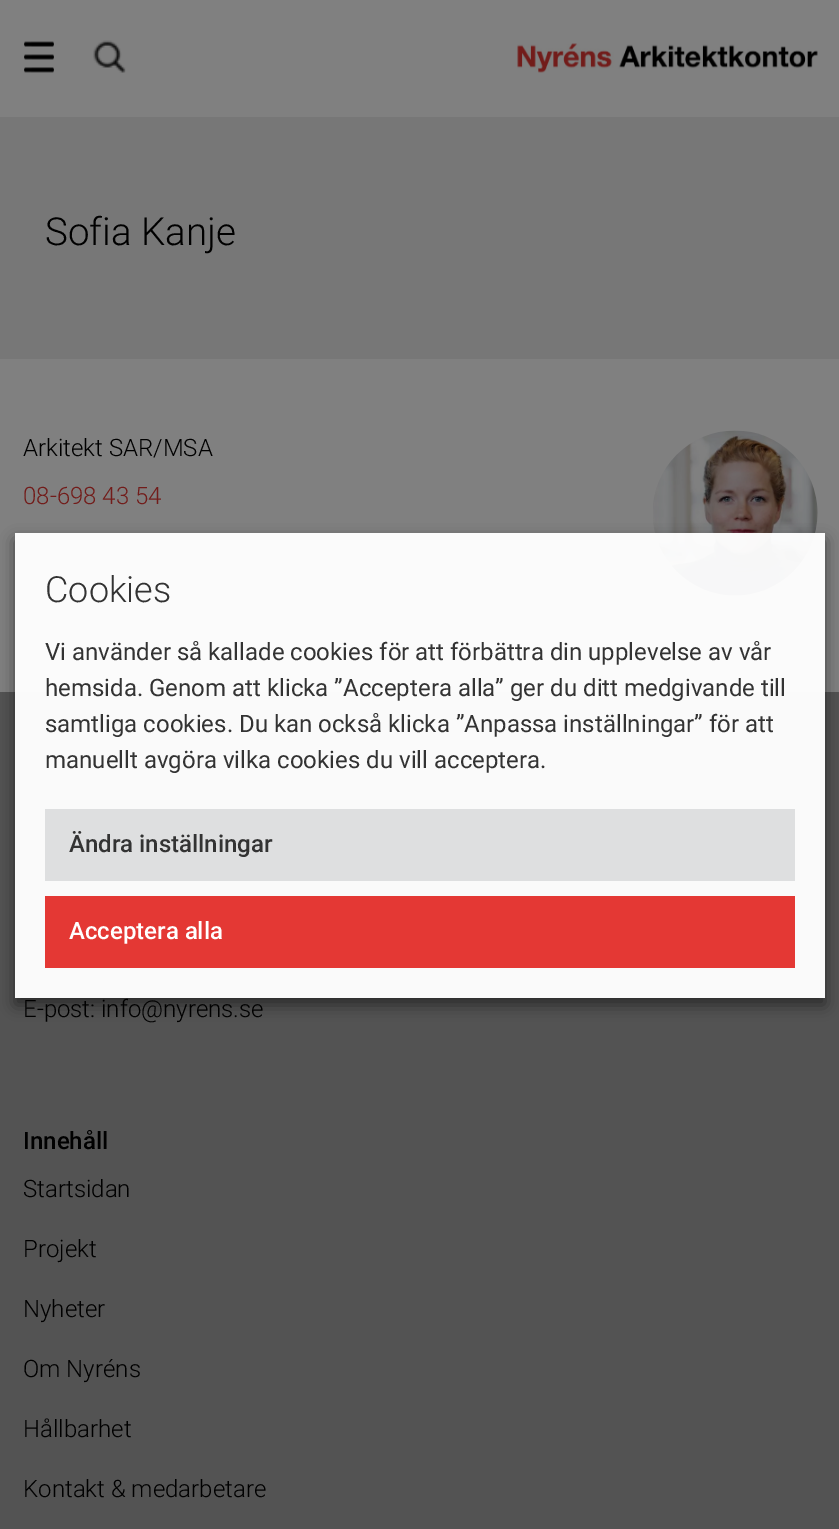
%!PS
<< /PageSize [839 1529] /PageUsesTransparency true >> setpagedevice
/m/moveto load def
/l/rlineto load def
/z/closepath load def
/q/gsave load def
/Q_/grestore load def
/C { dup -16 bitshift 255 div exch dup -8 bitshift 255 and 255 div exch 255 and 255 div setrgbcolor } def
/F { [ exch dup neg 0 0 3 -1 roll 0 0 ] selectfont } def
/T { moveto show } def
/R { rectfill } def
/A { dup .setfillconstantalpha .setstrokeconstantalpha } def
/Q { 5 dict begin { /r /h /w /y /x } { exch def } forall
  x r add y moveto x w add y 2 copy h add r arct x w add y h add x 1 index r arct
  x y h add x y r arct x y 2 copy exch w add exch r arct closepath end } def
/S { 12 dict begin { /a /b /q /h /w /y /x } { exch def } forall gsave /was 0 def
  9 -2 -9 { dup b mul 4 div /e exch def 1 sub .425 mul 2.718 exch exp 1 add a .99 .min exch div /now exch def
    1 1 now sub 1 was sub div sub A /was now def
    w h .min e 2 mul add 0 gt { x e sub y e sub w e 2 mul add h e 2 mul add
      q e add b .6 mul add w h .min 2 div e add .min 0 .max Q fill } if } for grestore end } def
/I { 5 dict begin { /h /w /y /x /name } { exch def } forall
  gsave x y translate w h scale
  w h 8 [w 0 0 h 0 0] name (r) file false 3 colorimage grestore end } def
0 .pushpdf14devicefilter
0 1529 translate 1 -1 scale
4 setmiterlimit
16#808080 C
0 0 839 1529 R
(1.rgb) 24 41 30 32 I
(2.rgb) 93 40 33 33 I
(3.rgb) 517 43 301 30 I
16#777777 C
0 117 839 242 R
/Roboto-Light 38.5 F
16#000000 C
(Sofia Kanje) 45 245 T
/Roboto-Light 24 F
(Arkitekt SAR/MSA) 23 456 T
16#721C1A C
(08-698 43 54) 23 504 T
(4.rgb) 653 430 165 166 I
16#535353 C
0 692 839 837 R
16#000000 C
(E-post: info@nyrens.se) 23 1017 T
/Roboto-Medium 24 F
(Innehåll) 23 1149 T
/Roboto-Light 24 F
(Startsidan) 23 1197 T
(Projekt) 23 1257 T
(Nyheter) 23 1317 T
(Om Nyréns) 23 1377 T
(Hållbarhet) 23 1437 T
(Kontakt & medarbetare) 23 1497 T
q
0 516 m 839 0 l 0 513 l -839 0 l z 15 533 m 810 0 l 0 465 l -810 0 l z eoclip newpath
15 540 810 465 0 7.5 .5 S
Q_
0.97 A
16#FFFFFF C
15 533 810 465 R
/Roboto-Light 36 F
1 A
16#333333 C
(Cookies) 45 602 T
/Roboto-Regular 24 F
(Vi använder så kallade cookies för att förbättra din upplevelse av vår) 45 660 T
(hemsida. Genom att klicka ”Acceptera alla” ger du ditt medgivande till) 45 696 T
(samtliga cookies. Du kan också klicka ”Anpassa inställningar” för att) 45 732 T
(manuellt avgöra vilka cookies du vill acceptera.) 45 768 T
16#DEDFE0 C
45 809 750 72 R
/Roboto-Medium 24 F
16#333333 C
(Ändra inställningar) 69 852 T
16#E43834 C
45 896 750 72 R
16#FFFFFF C
(Acceptera alla) 69 939 T
.poppdf14devicefilter showpage
